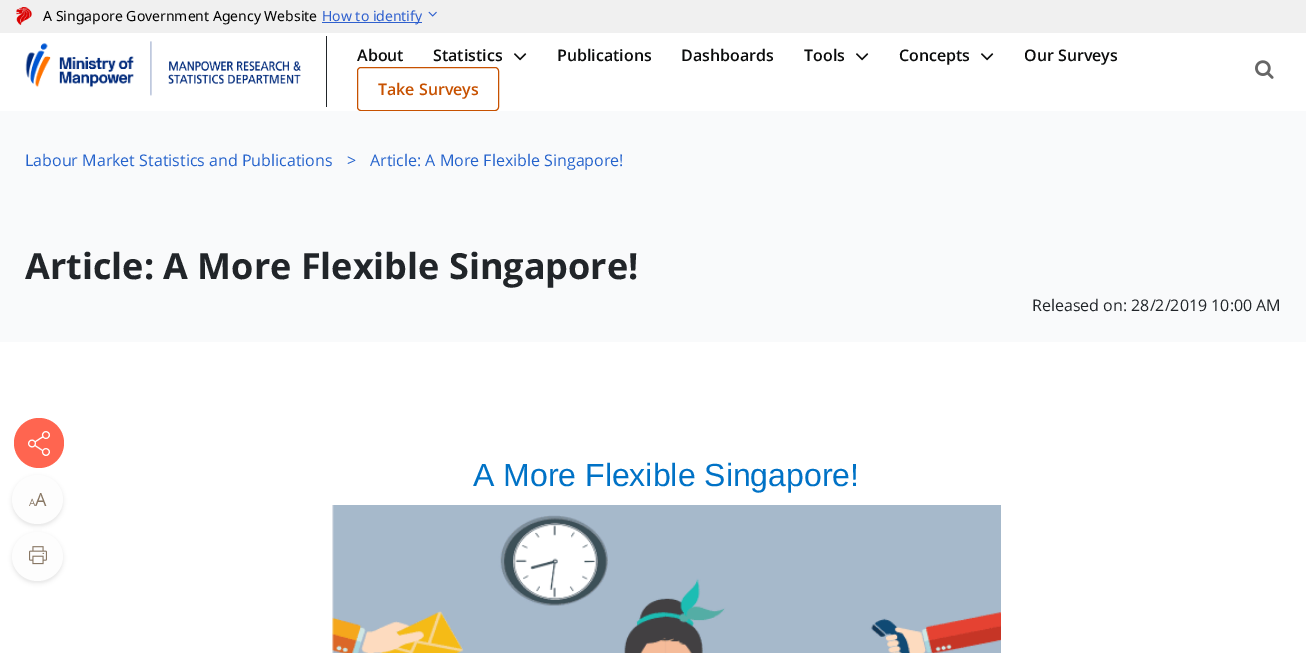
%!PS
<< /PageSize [1306 653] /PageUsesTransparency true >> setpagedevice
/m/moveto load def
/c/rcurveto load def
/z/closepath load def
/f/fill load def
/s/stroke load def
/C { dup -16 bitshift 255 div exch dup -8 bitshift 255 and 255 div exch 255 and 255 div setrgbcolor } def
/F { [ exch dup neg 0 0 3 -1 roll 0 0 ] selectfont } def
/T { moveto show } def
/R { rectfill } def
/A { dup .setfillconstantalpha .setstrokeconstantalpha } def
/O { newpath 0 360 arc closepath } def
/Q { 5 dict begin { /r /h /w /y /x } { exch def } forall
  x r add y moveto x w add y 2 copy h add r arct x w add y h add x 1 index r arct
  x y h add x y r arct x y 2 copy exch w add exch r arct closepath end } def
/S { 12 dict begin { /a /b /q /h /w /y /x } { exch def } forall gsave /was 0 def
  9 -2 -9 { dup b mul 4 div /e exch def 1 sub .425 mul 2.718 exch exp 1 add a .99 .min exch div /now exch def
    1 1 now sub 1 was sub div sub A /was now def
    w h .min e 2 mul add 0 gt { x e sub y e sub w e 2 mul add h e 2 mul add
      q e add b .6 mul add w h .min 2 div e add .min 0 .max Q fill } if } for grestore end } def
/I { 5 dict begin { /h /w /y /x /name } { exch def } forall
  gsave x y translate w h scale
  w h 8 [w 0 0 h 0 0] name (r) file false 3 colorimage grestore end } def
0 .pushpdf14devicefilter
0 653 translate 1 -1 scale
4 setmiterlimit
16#FFFFFF C
0 0 1306 653 R
16#F0F0F0 C
0 0 1306 33 R
(1.rgb) 16 7 16 18 I
/NotoSans-Regular 14 F
16#000000 C
(A Singapore Government Agency Website) 43 21 T
16#2F60CE C
322 22 100 1 R
(How to identify) 322 21 T
(2.rgb) 428 11 9 6 I
16#212529 C
326 36 1 71 R
(3.rgb) 25 41 127 55 I
(4.rgb) 168 61 133 23 I
/OpenSans-SemiBold 16 F
16#0C0D0D C
(About) 357 61 T
(Statistics) 433 61 T
(5.rgb) 514 53 13 8 I
(Publications) 557 61 T
(Dashboards) 681 61 T
(Tools) 804 61 T
(5.rgb) 856 53 13 8 I
(Concepts) 899 61 T
(5.rgb) 981 53 13 8 I
(Our Surveys) 1024 61 T
16#C75100 C
357.5 67.5 141 43 3.5 Q s
(Take Surveys) 378 95 T
(6.rgb) 1255 60 19 19 I
16#F9FAFB C
0 111 1306 231 R
/OpenSans-Regular 16 F
16#2563CC C
(Labour Market Statistics and Publications) 25 166 T
(>) 347 166 T
(Article: A More Flexible Singapore!) 370 166 T
/OpenSans-Bold 36 F
16#212529 C
(Article: A More Flexible Singapore!) 25 279 T
/OpenSans-Regular 16 F
(Released on: 28/2/2019 10:00 AM) 1032 311 T
/LiberationSans-Regular 32 F
16#0072C6 C
(A More Flexible Singapore!) 473 486 T
(7.rgb) 332 505 669 148 I
16#FF6550 C
39 443 25 O f
(8.rgb) 28 431 22 25 I
16#313131 C
12 477 51 49 24.5 2 .12 S
16#FDFDFD C
37.5 475 m 14 0 25.5 11 25.5 24.5 c 0 13.5 -11.5 24.5 -25.5 24.5 c -14 0 -25.5 -11 -25.5 -24.5 c 0 -13.5 11.5 -24.5 25.5 -24.5 c z f
/OpenSans-Regular 10 F
16#887764 C
(A) 29 506 T
/OpenSans-Regular 18 F
(A) 35 506 T
16#313131 C
12 534 51 49 24.5 2 .12 S
16#FDFDFD C
37.5 532 m 14 0 25.5 11 25.5 24.5 c 0 13.5 -11.5 24.5 -25.5 24.5 c -14 0 -25.5 -11 -25.5 -24.5 c 0 -13.5 11.5 -24.5 25.5 -24.5 c z f
(9.rgb) 29 546 18 19 I
.poppdf14devicefilter showpage
